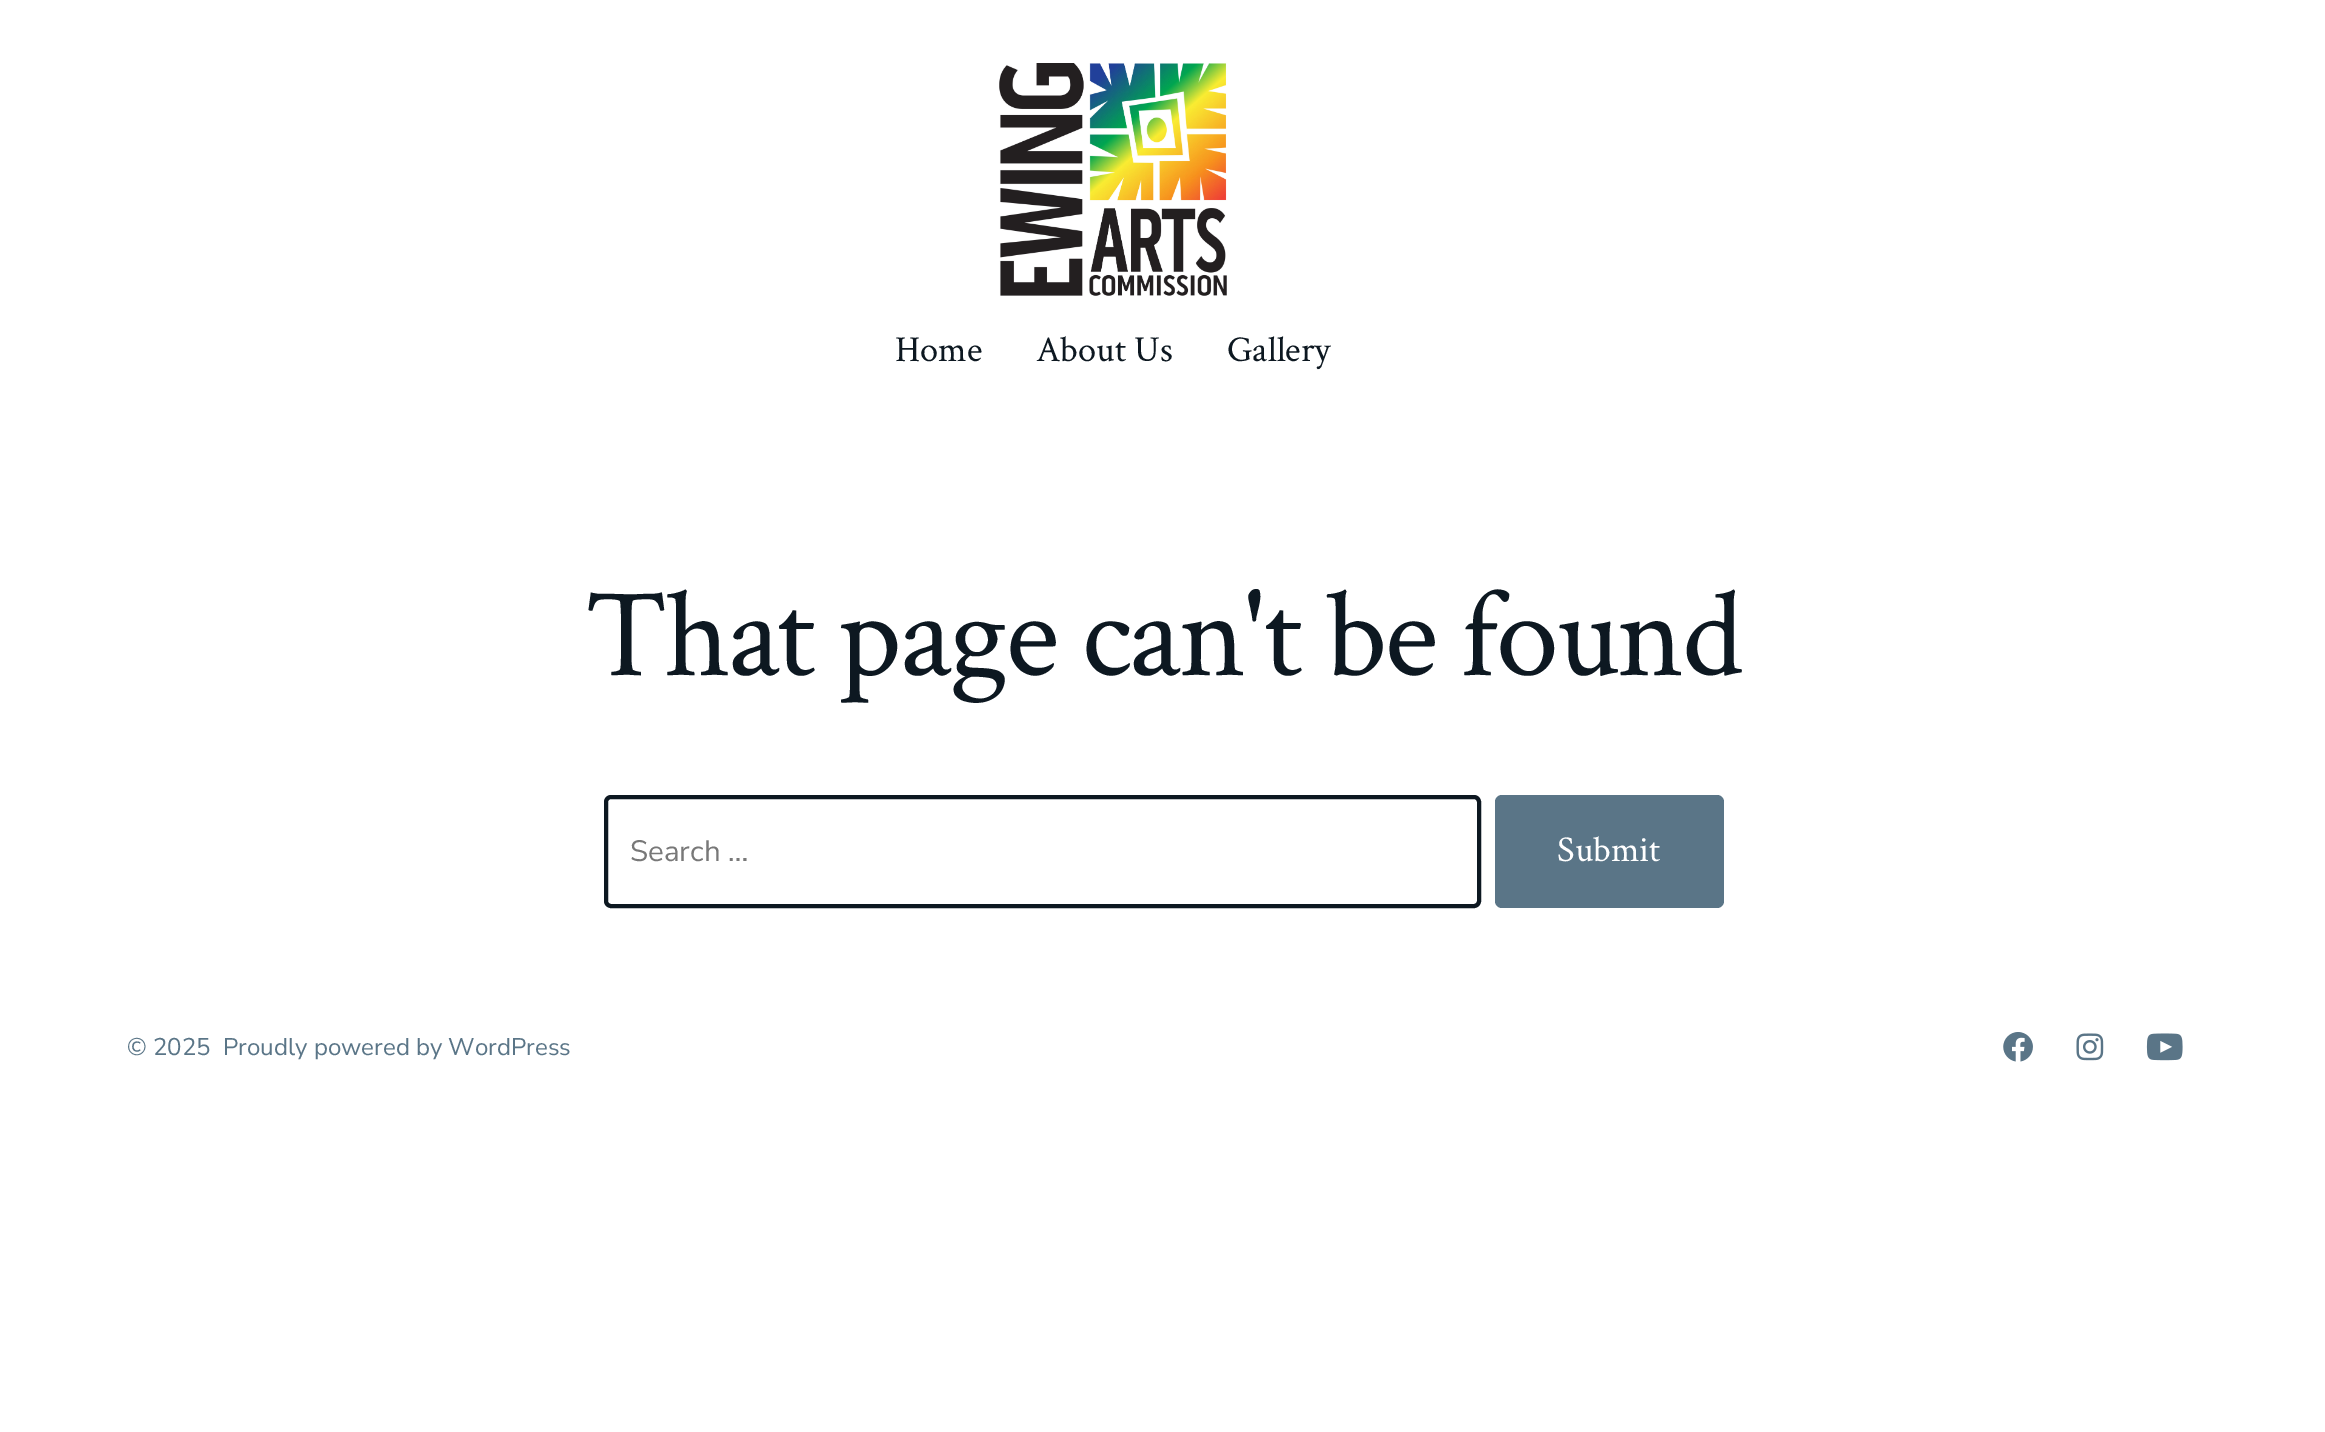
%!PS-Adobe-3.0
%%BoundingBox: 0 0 2325 1432
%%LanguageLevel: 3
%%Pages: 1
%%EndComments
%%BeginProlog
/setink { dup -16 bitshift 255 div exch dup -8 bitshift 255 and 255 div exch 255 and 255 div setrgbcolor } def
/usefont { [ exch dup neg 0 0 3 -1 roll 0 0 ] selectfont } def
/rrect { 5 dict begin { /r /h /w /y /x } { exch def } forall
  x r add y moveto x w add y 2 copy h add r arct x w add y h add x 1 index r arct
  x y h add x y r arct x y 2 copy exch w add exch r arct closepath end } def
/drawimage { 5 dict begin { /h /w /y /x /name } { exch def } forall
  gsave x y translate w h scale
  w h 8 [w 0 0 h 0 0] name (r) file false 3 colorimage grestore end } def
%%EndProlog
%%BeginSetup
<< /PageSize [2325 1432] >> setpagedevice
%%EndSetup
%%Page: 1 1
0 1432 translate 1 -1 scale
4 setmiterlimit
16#FFFFFF setink
0 0 2325 1432 rectfill
(img1.raw) 999 63 228 233 drawimage
/CrimsonText-Regular 36.5 usefont
16#0D1821 setink
[
    [(Home) 895 361]
    [(About Us) 1036 361]
    [(Gallery) 1227 361]
] { aload pop moveto show } forall
/CrimsonText-Regular 126.25 usefont
585 675 moveto -2.5 0 (That page can't be found) ashow
4 setlinewidth
606 797 873 109 5 rrect stroke
/NunitoSans-Regular 29.5 usefont
16#787878 setink
630 861 moveto (Search …) show
16#5A7587 setink
1495 795 229 113 7 rrect fill
/CrimsonText-Regular 36.5 usefont
16#FFFFFF setink
1557 861 moveto (Submit) show
/NunitoSans-Regular 24.1 usefont
16#5A7587 setink
127 1055 moveto (© 2025) show
223 1055 moveto (Proudly powered by WordPress) show
(img2.raw) 2003 1032 30 30 drawimage
(img3.raw) 2076 1033 28 28 drawimage
(img4.raw) 2146 1033 37 28 drawimage
showpage
%%EOF
